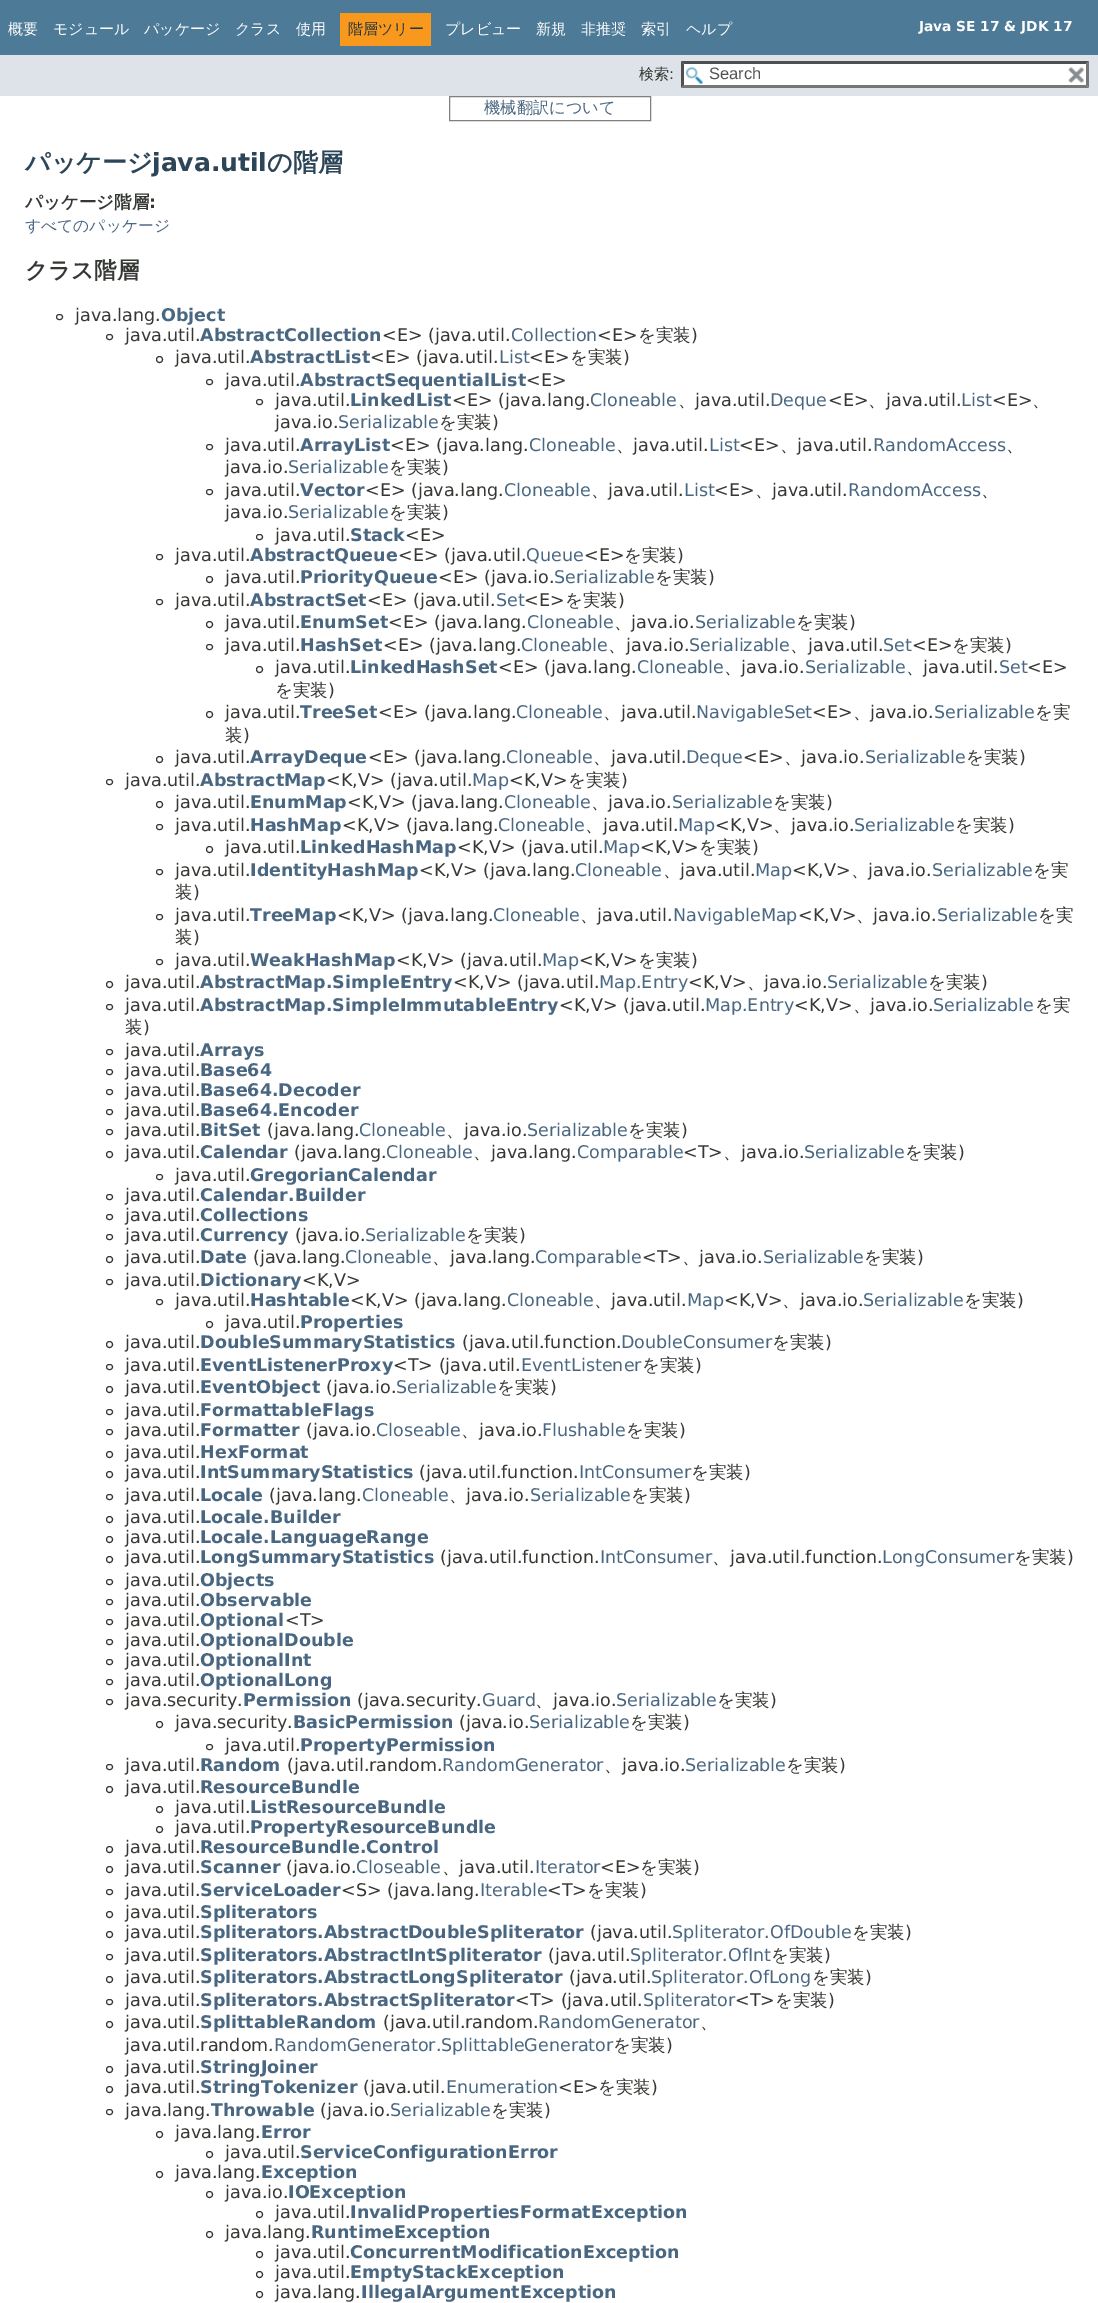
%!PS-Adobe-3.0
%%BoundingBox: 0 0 1098 2303
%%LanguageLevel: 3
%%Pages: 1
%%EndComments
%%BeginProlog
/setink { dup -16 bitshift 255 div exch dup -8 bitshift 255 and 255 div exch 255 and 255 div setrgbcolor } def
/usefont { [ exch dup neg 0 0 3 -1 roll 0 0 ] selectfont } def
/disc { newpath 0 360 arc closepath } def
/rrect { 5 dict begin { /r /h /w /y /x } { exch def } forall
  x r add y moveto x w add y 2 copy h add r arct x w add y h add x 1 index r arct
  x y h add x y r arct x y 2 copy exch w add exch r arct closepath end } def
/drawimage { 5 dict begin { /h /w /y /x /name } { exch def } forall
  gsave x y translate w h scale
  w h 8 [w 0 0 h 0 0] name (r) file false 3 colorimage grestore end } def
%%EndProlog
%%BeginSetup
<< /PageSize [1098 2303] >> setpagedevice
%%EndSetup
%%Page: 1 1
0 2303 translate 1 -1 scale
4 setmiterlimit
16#FFFFFF setink
0 0 1098 2303 rectfill
16#4D7A97 setink
0 0 1098 55 rectfill
/WenQuanYiZenHei-Medium 15 usefont
16#FFFFFF setink
[
    [(概要) 8 34]
    [(モジュール) 53 34]
    [(パッケージ) 144 34]
    [(クラス) 235 34]
    [(使用) 296 34]
] { aload pop moveto show } forall
16#F8981D setink
340 13 91 33 rectfill
16#253441 setink
348 34 moveto (階層ツリー) show
16#FFFFFF setink
[
    [(プレビュー) 445 34]
    [(新規) 536 34]
    [(非推奨) 581 34]
    [(索引) 641 34]
    [(ヘルプ) 686 34]
] { aload pop moveto show } forall
/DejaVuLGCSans-Bold 13.75 usefont
919 31 moveto (Java SE 17 & JDK 17) show
16#DEE3E9 setink
0 55 1098 41 rectfill
/WenQuanYiZenHei-Medium 15 usefont
16#353833 setink
639 79 moveto (検索) show
/DejaVuLGCSans-Regular 15 usefont
669 79 moveto (:) show
16#FFFFFF setink
681 61 408 27 rectfill
(img1.raw) 686 67 17 17 drawimage
16#4F4F4F setink
681 61 moveto 1089 61 lineto 1086 64 lineto 684 64 lineto closepath fill
16#767676 setink
1089 61 moveto 1089 87.5 lineto 1086 85 lineto 1086 64 lineto closepath fill
1089 88 moveto 681 88 lineto 684 85 lineto 1086 85 lineto closepath fill
16#4F4F4F setink
681 87.5 moveto 681 61 lineto 684 64 lineto 684 85 lineto closepath fill
/LiberationSans-Regular 16.5 usefont
16#545454 setink
709 79 moveto (Search) show
(img2.raw) 1068 67 16 16 drawimage
16#808080 setink
449.5 96.5 201 24 rectstroke
/WenQuanYiZenHei-Medium 16.25 usefont
16#4A6782 setink
484 113 moveto (機械翻訳について) show
/WenQuanYiZenHei-Bold 25 usefont
16#2C4557 setink
25 171 moveto (パッケージ) show
/DejaVuLGCSans-Bold 25 usefont
152 171 moveto (java.util) show
/WenQuanYiZenHei-Bold 25 usefont
267 171 moveto (の階層) show
/WenQuanYiZenHei-Bold 17.5 usefont
16#353833 setink
25 208 moveto (パッケージ階層) show
/DejaVuLGCSans-Bold 17.5 usefont
149 208 moveto (:) show
/WenQuanYiZenHei-Medium 15.75 usefont
16#4A6782 setink
25 231 moveto (すべてのパッケージ) show
/WenQuanYiZenHei-Bold 22.5 usefont
16#353833 setink
25 278 moveto (クラス階層) show
56.5 314.5 6 5 2.5 rrect stroke
/DejaVuLGCSans-Regular 17.5 usefont
75 321 moveto (java.lang.) show
/DejaVuLGCSans-Bold 17.5 usefont
16#4A6782 setink
161 321 moveto (Object) show
16#353833 setink
106.5 334.5 6 5 2.5 rrect stroke
/DejaVuLGCSans-Regular 17.5 usefont
125 341 moveto (java.util.) show
/DejaVuLGCSans-Bold 17.5 usefont
16#4A6782 setink
200 341 moveto (AbstractCollection) show
/DejaVuLGCSans-Regular 17.5 usefont
16#353833 setink
382 341 moveto (<E> \(java.util.) show
16#4A6782 setink
511 341 moveto (Collection) show
16#353833 setink
597 341 moveto (<E>) show
/WenQuanYiZenHei-Medium 17.5 usefont
638 341 moveto (を実装) show
/DejaVuLGCSans-Regular 17.5 usefont
691 341 moveto (\)) show
159.5 359.5 3 disc stroke
175 363 moveto (java.util.) show
/DejaVuLGCSans-Bold 17.5 usefont
16#4A6782 setink
250 363 moveto (AbstractList) show
/DejaVuLGCSans-Regular 17.5 usefont
16#353833 setink
370 363 moveto (<E> \(java.util.) show
16#4A6782 setink
499 363 moveto (List) show
16#353833 setink
529 363 moveto (<E>) show
/WenQuanYiZenHei-Medium 17.5 usefont
570 363 moveto (を実装) show
/DejaVuLGCSans-Regular 17.5 usefont
623 363 moveto (\)) show
206.5 379.5 6 5 2.5 rrect stroke
225 386 moveto (java.util.) show
/DejaVuLGCSans-Bold 17.5 usefont
16#4A6782 setink
300 386 moveto (AbstractSequentialList) show
/DejaVuLGCSans-Regular 17.5 usefont
16#353833 setink
526 386 moveto (<E>) show
256.5 399.5 6 5 2.5 rrect stroke
275 406 moveto (java.util.) show
/DejaVuLGCSans-Bold 17.5 usefont
16#4A6782 setink
350 406 moveto (LinkedList) show
/DejaVuLGCSans-Regular 17.5 usefont
16#353833 setink
452 406 moveto (<E> \(java.lang.) show
16#4A6782 setink
590 406 moveto (Cloneable) show
16#353833 setink
695 406 moveto (java.util.) show
16#4A6782 setink
770 406 moveto (Deque) show
16#353833 setink
828 406 moveto (<E>) show
886 406 moveto (java.util.) show
16#4A6782 setink
961 406 moveto (List) show
16#353833 setink
992 406 moveto (<E>) show
/WenQuanYiZenHei-Medium 17.5 usefont
[
    [(、) 678 406]
    [(、) 868 406]
    [(、) 1032 406]
] { aload pop moveto show } forall
/DejaVuLGCSans-Regular 17.5 usefont
275 428 moveto (java.io.) show
16#4A6782 setink
338 428 moveto (Serializable) show
/WenQuanYiZenHei-Medium 17.5 usefont
16#353833 setink
439 428 moveto (を実装) show
/DejaVuLGCSans-Regular 17.5 usefont
492 428 moveto (\)) show
206.5 444.5 6 5 2.5 rrect stroke
225 451 moveto (java.util.) show
/DejaVuLGCSans-Bold 17.5 usefont
16#4A6782 setink
300 451 moveto (ArrayList) show
/DejaVuLGCSans-Regular 17.5 usefont
16#353833 setink
390 451 moveto (<E> \(java.lang.) show
16#4A6782 setink
529 451 moveto (Cloneable) show
16#353833 setink
633 451 moveto (java.util.) show
16#4A6782 setink
709 451 moveto (List) show
16#353833 setink
739 451 moveto (<E>) show
797 451 moveto (java.util.) show
16#4A6782 setink
873 451 moveto (RandomAccess) show
/WenQuanYiZenHei-Medium 17.5 usefont
16#353833 setink
[
    [(、) 616 451]
    [(、) 780 451]
    [(、) 1006 451]
] { aload pop moveto show } forall
/DejaVuLGCSans-Regular 17.5 usefont
225 473 moveto (java.io.) show
16#4A6782 setink
288 473 moveto (Serializable) show
/WenQuanYiZenHei-Medium 17.5 usefont
16#353833 setink
389 473 moveto (を実装) show
/DejaVuLGCSans-Regular 17.5 usefont
442 473 moveto (\)) show
206.5 489.5 6 5 2.5 rrect stroke
225 496 moveto (java.util.) show
/DejaVuLGCSans-Bold 17.5 usefont
16#4A6782 setink
300 496 moveto (Vector) show
/DejaVuLGCSans-Regular 17.5 usefont
16#353833 setink
365 496 moveto (<E> \(java.lang.) show
16#4A6782 setink
504 496 moveto (Cloneable) show
16#353833 setink
608 496 moveto (java.util.) show
16#4A6782 setink
684 496 moveto (List) show
16#353833 setink
714 496 moveto (<E>) show
772 496 moveto (java.util.) show
16#4A6782 setink
848 496 moveto (RandomAccess) show
/WenQuanYiZenHei-Medium 17.5 usefont
16#353833 setink
[
    [(、) 591 496]
    [(、) 755 496]
    [(、) 981 496]
] { aload pop moveto show } forall
/DejaVuLGCSans-Regular 17.5 usefont
225 518 moveto (java.io.) show
16#4A6782 setink
288 518 moveto (Serializable) show
/WenQuanYiZenHei-Medium 17.5 usefont
16#353833 setink
389 518 moveto (を実装) show
/DejaVuLGCSans-Regular 17.5 usefont
442 518 moveto (\)) show
256.5 534.5 6 5 2.5 rrect stroke
275 541 moveto (java.util.) show
/DejaVuLGCSans-Bold 17.5 usefont
16#4A6782 setink
350 541 moveto (Stack) show
/DejaVuLGCSans-Regular 17.5 usefont
16#353833 setink
405 541 moveto (<E>) show
156.5 554.5 6 5 2.5 rrect stroke
175 561 moveto (java.util.) show
/DejaVuLGCSans-Bold 17.5 usefont
16#4A6782 setink
250 561 moveto (AbstractQueue) show
/DejaVuLGCSans-Regular 17.5 usefont
16#353833 setink
398 561 moveto (<E> \(java.util.) show
16#4A6782 setink
526 561 moveto (Queue) show
16#353833 setink
584 561 moveto (<E>) show
/WenQuanYiZenHei-Medium 17.5 usefont
624 561 moveto (を実装) show
/DejaVuLGCSans-Regular 17.5 usefont
677 561 moveto (\)) show
209.5 579.5 3 disc stroke
225 583 moveto (java.util.) show
/DejaVuLGCSans-Bold 17.5 usefont
16#4A6782 setink
300 583 moveto (PriorityQueue) show
/DejaVuLGCSans-Regular 17.5 usefont
16#353833 setink
438 583 moveto (<E> \(java.io.) show
16#4A6782 setink
554 583 moveto (Serializable) show
/WenQuanYiZenHei-Medium 17.5 usefont
16#353833 setink
655 583 moveto (を実装) show
/DejaVuLGCSans-Regular 17.5 usefont
708 583 moveto (\)) show
156.5 599.5 6 5 2.5 rrect stroke
175 606 moveto (java.util.) show
/DejaVuLGCSans-Bold 17.5 usefont
16#4A6782 setink
250 606 moveto (AbstractSet) show
/DejaVuLGCSans-Regular 17.5 usefont
16#353833 setink
367 606 moveto (<E> \(java.util.) show
16#4A6782 setink
496 606 moveto (Set) show
16#353833 setink
524 606 moveto (<E>) show
/WenQuanYiZenHei-Medium 17.5 usefont
565 606 moveto (を実装) show
/DejaVuLGCSans-Regular 17.5 usefont
618 606 moveto (\)) show
209.5 624.5 3 disc stroke
225 628 moveto (java.util.) show
/DejaVuLGCSans-Bold 17.5 usefont
16#4A6782 setink
300 628 moveto (EnumSet) show
/DejaVuLGCSans-Regular 17.5 usefont
16#353833 setink
388 628 moveto (<E> \(java.lang.) show
16#4A6782 setink
527 628 moveto (Cloneable) show
16#353833 setink
631 628 moveto (java.io.) show
16#4A6782 setink
695 628 moveto (Serializable) show
/WenQuanYiZenHei-Medium 17.5 usefont
16#353833 setink
796 628 moveto (を実装) show
/DejaVuLGCSans-Regular 17.5 usefont
849 628 moveto (\)) show
/WenQuanYiZenHei-Medium 17.5 usefont
614 628 moveto (、) show
206.5 644.5 6 5 2.5 rrect stroke
/DejaVuLGCSans-Regular 17.5 usefont
225 651 moveto (java.util.) show
/DejaVuLGCSans-Bold 17.5 usefont
16#4A6782 setink
300 651 moveto (HashSet) show
/DejaVuLGCSans-Regular 17.5 usefont
16#353833 setink
383 651 moveto (<E> \(java.lang.) show
16#4A6782 setink
521 651 moveto (Cloneable) show
16#353833 setink
626 651 moveto (java.io.) show
16#4A6782 setink
689 651 moveto (Serializable) show
16#353833 setink
808 651 moveto (java.util.) show
16#4A6782 setink
883 651 moveto (Set) show
16#353833 setink
912 651 moveto (<E>) show
/WenQuanYiZenHei-Medium 17.5 usefont
952 651 moveto (を実装) show
/DejaVuLGCSans-Regular 17.5 usefont
1005 651 moveto (\)) show
/WenQuanYiZenHei-Medium 17.5 usefont
608 651 moveto (、) show
790 651 moveto (、) show
259.5 669.5 3 disc stroke
/DejaVuLGCSans-Regular 17.5 usefont
275 673 moveto (java.util.) show
/DejaVuLGCSans-Bold 17.5 usefont
16#4A6782 setink
350 673 moveto (LinkedHashSet) show
/DejaVuLGCSans-Regular 17.5 usefont
16#353833 setink
498 673 moveto (<E> \(java.lang.) show
16#4A6782 setink
637 673 moveto (Cloneable) show
16#353833 setink
741 673 moveto (java.io.) show
16#4A6782 setink
805 673 moveto (Serializable) show
16#353833 setink
923 673 moveto (java.util.) show
16#4A6782 setink
999 673 moveto (Set) show
16#353833 setink
1027 673 moveto (<E>) show
/WenQuanYiZenHei-Medium 17.5 usefont
[
    [(、) 724 673]
    [(、) 906 673]
    [(を実装) 275 696]
] { aload pop moveto show } forall
/DejaVuLGCSans-Regular 17.5 usefont
328 696 moveto (\)) show
209.5 714.5 3 disc stroke
225 718 moveto (java.util.) show
/DejaVuLGCSans-Bold 17.5 usefont
16#4A6782 setink
300 718 moveto (TreeSet) show
/DejaVuLGCSans-Regular 17.5 usefont
16#353833 setink
378 718 moveto (<E> \(java.lang.) show
16#4A6782 setink
516 718 moveto (Cloneable) show
16#353833 setink
621 718 moveto (java.util.) show
16#4A6782 setink
696 718 moveto (NavigableSet) show
16#353833 setink
812 718 moveto (<E>) show
870 718 moveto (java.io.) show
16#4A6782 setink
934 718 moveto (Serializable) show
/WenQuanYiZenHei-Medium 17.5 usefont
16#353833 setink
[
    [(を実) 1035 718]
    [(、) 603 718]
    [(、) 853 718]
    [(装) 225 741]
] { aload pop moveto show } forall
/DejaVuLGCSans-Regular 17.5 usefont
243 741 moveto (\)) show
159.5 759.5 3 disc stroke
175 763 moveto (java.util.) show
/DejaVuLGCSans-Bold 17.5 usefont
16#4A6782 setink
250 763 moveto (ArrayDeque) show
/DejaVuLGCSans-Regular 17.5 usefont
16#353833 setink
368 763 moveto (<E> \(java.lang.) show
16#4A6782 setink
506 763 moveto (Cloneable) show
16#353833 setink
611 763 moveto (java.util.) show
16#4A6782 setink
686 763 moveto (Deque) show
16#353833 setink
743 763 moveto (<E>) show
801 763 moveto (java.io.) show
16#4A6782 setink
865 763 moveto (Serializable) show
/WenQuanYiZenHei-Medium 17.5 usefont
16#353833 setink
966 763 moveto (を実装) show
/DejaVuLGCSans-Regular 17.5 usefont
1019 763 moveto (\)) show
/WenQuanYiZenHei-Medium 17.5 usefont
593 763 moveto (、) show
784 763 moveto (、) show
106.5 779.5 6 5 2.5 rrect stroke
/DejaVuLGCSans-Regular 17.5 usefont
125 786 moveto (java.util.) show
/DejaVuLGCSans-Bold 17.5 usefont
16#4A6782 setink
200 786 moveto (AbstractMap) show
/DejaVuLGCSans-Regular 17.5 usefont
16#353833 setink
326 786 moveto (<K,V> \(java.util.) show
16#4A6782 setink
472 786 moveto (Map) show
16#353833 setink
509 786 moveto (<K,V>) show
/WenQuanYiZenHei-Medium 17.5 usefont
568 786 moveto (を実装) show
/DejaVuLGCSans-Regular 17.5 usefont
621 786 moveto (\)) show
159.5 804.5 3 disc stroke
175 808 moveto (java.util.) show
/DejaVuLGCSans-Bold 17.5 usefont
16#4A6782 setink
250 808 moveto (EnumMap) show
/DejaVuLGCSans-Regular 17.5 usefont
16#353833 setink
347 808 moveto (<K,V> \(java.lang.) show
16#4A6782 setink
504 808 moveto (Cloneable) show
16#353833 setink
608 808 moveto (java.io.) show
16#4A6782 setink
672 808 moveto (Serializable) show
/WenQuanYiZenHei-Medium 17.5 usefont
16#353833 setink
773 808 moveto (を実装) show
/DejaVuLGCSans-Regular 17.5 usefont
826 808 moveto (\)) show
/WenQuanYiZenHei-Medium 17.5 usefont
591 808 moveto (、) show
156.5 824.5 6 5 2.5 rrect stroke
/DejaVuLGCSans-Regular 17.5 usefont
175 831 moveto (java.util.) show
/DejaVuLGCSans-Bold 17.5 usefont
16#4A6782 setink
250 831 moveto (HashMap) show
/DejaVuLGCSans-Regular 17.5 usefont
16#353833 setink
342 831 moveto (<K,V> \(java.lang.) show
16#4A6782 setink
498 831 moveto (Cloneable) show
16#353833 setink
603 831 moveto (java.util.) show
16#4A6782 setink
678 831 moveto (Map) show
16#353833 setink
715 831 moveto (<K,V>) show
791 831 moveto (java.io.) show
16#4A6782 setink
854 831 moveto (Serializable) show
/WenQuanYiZenHei-Medium 17.5 usefont
16#353833 setink
955 831 moveto (を実装) show
/DejaVuLGCSans-Regular 17.5 usefont
1008 831 moveto (\)) show
/WenQuanYiZenHei-Medium 17.5 usefont
585 831 moveto (、) show
773 831 moveto (、) show
209.5 849.5 3 disc stroke
/DejaVuLGCSans-Regular 17.5 usefont
225 853 moveto (java.util.) show
/DejaVuLGCSans-Bold 17.5 usefont
16#4A6782 setink
300 853 moveto (LinkedHashMap) show
/DejaVuLGCSans-Regular 17.5 usefont
16#353833 setink
457 853 moveto (<K,V> \(java.util.) show
16#4A6782 setink
603 853 moveto (Map) show
16#353833 setink
640 853 moveto (<K,V>) show
/WenQuanYiZenHei-Medium 17.5 usefont
699 853 moveto (を実装) show
/DejaVuLGCSans-Regular 17.5 usefont
752 853 moveto (\)) show
156.5 869.5 6 5 2.5 rrect stroke
175 876 moveto (java.util.) show
/DejaVuLGCSans-Bold 17.5 usefont
16#4A6782 setink
250 876 moveto (IdentityHashMap) show
/DejaVuLGCSans-Regular 17.5 usefont
16#353833 setink
419 876 moveto (<K,V> \(java.lang.) show
16#4A6782 setink
575 876 moveto (Cloneable) show
16#353833 setink
680 876 moveto (java.util.) show
16#4A6782 setink
755 876 moveto (Map) show
16#353833 setink
792 876 moveto (<K,V>) show
868 876 moveto (java.io.) show
16#4A6782 setink
932 876 moveto (Serializable) show
/WenQuanYiZenHei-Medium 17.5 usefont
16#353833 setink
[
    [(を実) 1033 876]
    [(、) 663 876]
    [(、) 851 876]
    [(装) 175 898]
] { aload pop moveto show } forall
/DejaVuLGCSans-Regular 17.5 usefont
193 898 moveto (\)) show
156.5 914.5 6 5 2.5 rrect stroke
175 921 moveto (java.util.) show
/DejaVuLGCSans-Bold 17.5 usefont
16#4A6782 setink
250 921 moveto (TreeMap) show
/DejaVuLGCSans-Regular 17.5 usefont
16#353833 setink
337 921 moveto (<K,V> \(java.lang.) show
16#4A6782 setink
493 921 moveto (Cloneable) show
16#353833 setink
597 921 moveto (java.util.) show
16#4A6782 setink
673 921 moveto (NavigableMap) show
16#353833 setink
798 921 moveto (<K,V>) show
873 921 moveto (java.io.) show
16#4A6782 setink
937 921 moveto (Serializable) show
/WenQuanYiZenHei-Medium 17.5 usefont
16#353833 setink
[
    [(を実) 1038 921]
    [(、) 580 921]
    [(、) 856 921]
    [(装) 175 943]
] { aload pop moveto show } forall
/DejaVuLGCSans-Regular 17.5 usefont
193 943 moveto (\)) show
156.5 959.5 6 5 2.5 rrect stroke
175 966 moveto (java.util.) show
/DejaVuLGCSans-Bold 17.5 usefont
16#4A6782 setink
250 966 moveto (WeakHashMap) show
/DejaVuLGCSans-Regular 17.5 usefont
16#353833 setink
396 966 moveto (<K,V> \(java.util.) show
16#4A6782 setink
542 966 moveto (Map) show
16#353833 setink
579 966 moveto (<K,V>) show
/WenQuanYiZenHei-Medium 17.5 usefont
638 966 moveto (を実装) show
/DejaVuLGCSans-Regular 17.5 usefont
691 966 moveto (\)) show
109.5 984.5 3 disc stroke
125 988 moveto (java.util.) show
/DejaVuLGCSans-Bold 17.5 usefont
16#4A6782 setink
200 988 moveto (AbstractMap.SimpleEntry) show
/DejaVuLGCSans-Regular 17.5 usefont
16#353833 setink
453 988 moveto (<K,V> \(java.util.) show
16#4A6782 setink
599 988 moveto (Map.Entry) show
16#353833 setink
688 988 moveto (<K,V>) show
764 988 moveto (java.io.) show
16#4A6782 setink
827 988 moveto (Serializable) show
/WenQuanYiZenHei-Medium 17.5 usefont
16#353833 setink
928 988 moveto (を実装) show
/DejaVuLGCSans-Regular 17.5 usefont
981 988 moveto (\)) show
/WenQuanYiZenHei-Medium 17.5 usefont
747 988 moveto (、) show
106.5 1004.5 6 5 2.5 rrect stroke
/DejaVuLGCSans-Regular 17.5 usefont
125 1011 moveto (java.util.) show
/DejaVuLGCSans-Bold 17.5 usefont
16#4A6782 setink
200 1011 moveto (AbstractMap.SimpleImmutableEntry) show
/DejaVuLGCSans-Regular 17.5 usefont
16#353833 setink
559 1011 moveto (<K,V> \(java.util.) show
16#4A6782 setink
705 1011 moveto (Map.Entry) show
16#353833 setink
794 1011 moveto (<K,V>) show
870 1011 moveto (java.io.) show
16#4A6782 setink
933 1011 moveto (Serializable) show
/WenQuanYiZenHei-Medium 17.5 usefont
16#353833 setink
[
    [(を実) 1035 1011]
    [(、) 853 1011]
    [(装) 125 1033]
] { aload pop moveto show } forall
/DejaVuLGCSans-Regular 17.5 usefont
143 1033 moveto (\)) show
106.5 1049.5 6 5 2.5 rrect stroke
125 1056 moveto (java.util.) show
/DejaVuLGCSans-Bold 17.5 usefont
16#4A6782 setink
200 1056 moveto (Arrays) show
16#353833 setink
106.5 1069.5 6 5 2.5 rrect stroke
/DejaVuLGCSans-Regular 17.5 usefont
125 1076 moveto (java.util.) show
/DejaVuLGCSans-Bold 17.5 usefont
16#4A6782 setink
200 1076 moveto (Base64) show
16#353833 setink
106.5 1089.5 6 5 2.5 rrect stroke
/DejaVuLGCSans-Regular 17.5 usefont
125 1096 moveto (java.util.) show
/DejaVuLGCSans-Bold 17.5 usefont
16#4A6782 setink
200 1096 moveto (Base64.Decoder) show
16#353833 setink
106.5 1109.5 6 5 2.5 rrect stroke
/DejaVuLGCSans-Regular 17.5 usefont
125 1116 moveto (java.util.) show
/DejaVuLGCSans-Bold 17.5 usefont
16#4A6782 setink
200 1116 moveto (Base64.Encoder) show
16#353833 setink
106.5 1129.5 6 5 2.5 rrect stroke
/DejaVuLGCSans-Regular 17.5 usefont
125 1136 moveto (java.util.) show
/DejaVuLGCSans-Bold 17.5 usefont
16#4A6782 setink
200 1136 moveto (BitSet) show
/DejaVuLGCSans-Regular 17.5 usefont
16#353833 setink
267 1136 moveto (\(java.lang.) show
16#4A6782 setink
359 1136 moveto (Cloneable) show
16#353833 setink
464 1136 moveto (java.io.) show
16#4A6782 setink
527 1136 moveto (Serializable) show
/WenQuanYiZenHei-Medium 17.5 usefont
16#353833 setink
628 1136 moveto (を実装) show
/DejaVuLGCSans-Regular 17.5 usefont
681 1136 moveto (\)) show
/WenQuanYiZenHei-Medium 17.5 usefont
446 1136 moveto (、) show
109.5 1154.5 3 disc stroke
/DejaVuLGCSans-Regular 17.5 usefont
125 1158 moveto (java.util.) show
/DejaVuLGCSans-Bold 17.5 usefont
16#4A6782 setink
200 1158 moveto (Calendar) show
/DejaVuLGCSans-Regular 17.5 usefont
16#353833 setink
294 1158 moveto (\(java.lang.) show
16#4A6782 setink
386 1158 moveto (Cloneable) show
16#353833 setink
491 1158 moveto (java.lang.) show
16#4A6782 setink
577 1158 moveto (Comparable) show
16#353833 setink
683 1158 moveto (<T>) show
741 1158 moveto (java.io.) show
16#4A6782 setink
804 1158 moveto (Serializable) show
/WenQuanYiZenHei-Medium 17.5 usefont
16#353833 setink
905 1158 moveto (を実装) show
/DejaVuLGCSans-Regular 17.5 usefont
958 1158 moveto (\)) show
/WenQuanYiZenHei-Medium 17.5 usefont
473 1158 moveto (、) show
723 1158 moveto (、) show
156.5 1174.5 6 5 2.5 rrect stroke
/DejaVuLGCSans-Regular 17.5 usefont
175 1181 moveto (java.util.) show
/DejaVuLGCSans-Bold 17.5 usefont
16#4A6782 setink
250 1181 moveto (GregorianCalendar) show
16#353833 setink
106.5 1194.5 6 5 2.5 rrect stroke
/DejaVuLGCSans-Regular 17.5 usefont
125 1201 moveto (java.util.) show
/DejaVuLGCSans-Bold 17.5 usefont
16#4A6782 setink
200 1201 moveto (Calendar.Builder) show
16#353833 setink
106.5 1214.5 6 5 2.5 rrect stroke
/DejaVuLGCSans-Regular 17.5 usefont
125 1221 moveto (java.util.) show
/DejaVuLGCSans-Bold 17.5 usefont
16#4A6782 setink
200 1221 moveto (Collections) show
16#353833 setink
106.5 1234.5 6 5 2.5 rrect stroke
/DejaVuLGCSans-Regular 17.5 usefont
125 1241 moveto (java.util.) show
/DejaVuLGCSans-Bold 17.5 usefont
16#4A6782 setink
200 1241 moveto (Currency) show
/DejaVuLGCSans-Regular 17.5 usefont
16#353833 setink
295 1241 moveto (\(java.io.) show
16#4A6782 setink
365 1241 moveto (Serializable) show
/WenQuanYiZenHei-Medium 17.5 usefont
16#353833 setink
466 1241 moveto (を実装) show
/DejaVuLGCSans-Regular 17.5 usefont
519 1241 moveto (\)) show
109.5 1259.5 3 disc stroke
125 1263 moveto (java.util.) show
/DejaVuLGCSans-Bold 17.5 usefont
16#4A6782 setink
200 1263 moveto (Date) show
/DejaVuLGCSans-Regular 17.5 usefont
16#353833 setink
253 1263 moveto (\(java.lang.) show
16#4A6782 setink
345 1263 moveto (Cloneable) show
16#353833 setink
450 1263 moveto (java.lang.) show
16#4A6782 setink
535 1263 moveto (Comparable) show
16#353833 setink
642 1263 moveto (<T>) show
699 1263 moveto (java.io.) show
16#4A6782 setink
763 1263 moveto (Serializable) show
/WenQuanYiZenHei-Medium 17.5 usefont
16#353833 setink
864 1263 moveto (を実装) show
/DejaVuLGCSans-Regular 17.5 usefont
917 1263 moveto (\)) show
/WenQuanYiZenHei-Medium 17.5 usefont
432 1263 moveto (、) show
682 1263 moveto (、) show
106.5 1279.5 6 5 2.5 rrect stroke
/DejaVuLGCSans-Regular 17.5 usefont
125 1286 moveto (java.util.) show
/DejaVuLGCSans-Bold 17.5 usefont
16#4A6782 setink
200 1286 moveto (Dictionary) show
/DejaVuLGCSans-Regular 17.5 usefont
16#353833 setink
302 1286 moveto (<K,V>) show
156.5 1299.5 6 5 2.5 rrect stroke
175 1306 moveto (java.util.) show
/DejaVuLGCSans-Bold 17.5 usefont
16#4A6782 setink
250 1306 moveto (Hashtable) show
/DejaVuLGCSans-Regular 17.5 usefont
16#353833 setink
350 1306 moveto (<K,V> \(java.lang.) show
16#4A6782 setink
507 1306 moveto (Cloneable) show
16#353833 setink
611 1306 moveto (java.util.) show
16#4A6782 setink
687 1306 moveto (Map) show
16#353833 setink
724 1306 moveto (<K,V>) show
800 1306 moveto (java.io.) show
16#4A6782 setink
863 1306 moveto (Serializable) show
/WenQuanYiZenHei-Medium 17.5 usefont
16#353833 setink
964 1306 moveto (を実装) show
/DejaVuLGCSans-Regular 17.5 usefont
1017 1306 moveto (\)) show
/WenQuanYiZenHei-Medium 17.5 usefont
594 1306 moveto (、) show
782 1306 moveto (、) show
209.5 1324.5 3 disc stroke
/DejaVuLGCSans-Regular 17.5 usefont
225 1328 moveto (java.util.) show
/DejaVuLGCSans-Bold 17.5 usefont
16#4A6782 setink
300 1328 moveto (Properties) show
16#353833 setink
109.5 1344.5 3 disc stroke
/DejaVuLGCSans-Regular 17.5 usefont
125 1348 moveto (java.util.) show
/DejaVuLGCSans-Bold 17.5 usefont
16#4A6782 setink
200 1348 moveto (DoubleSummaryStatistics) show
/DejaVuLGCSans-Regular 17.5 usefont
16#353833 setink
462 1348 moveto (\(java.util.function.) show
16#4A6782 setink
621 1348 moveto (DoubleConsumer) show
/WenQuanYiZenHei-Medium 17.5 usefont
16#353833 setink
772 1348 moveto (を実装) show
/DejaVuLGCSans-Regular 17.5 usefont
825 1348 moveto (\)) show
106.5 1364.5 6 5 2.5 rrect stroke
125 1371 moveto (java.util.) show
/DejaVuLGCSans-Bold 17.5 usefont
16#4A6782 setink
200 1371 moveto (EventListenerProxy) show
/DejaVuLGCSans-Regular 17.5 usefont
16#353833 setink
393 1371 moveto (<T> \(java.util.) show
16#4A6782 setink
521 1371 moveto (EventListener) show
/WenQuanYiZenHei-Medium 17.5 usefont
16#353833 setink
642 1371 moveto (を実装) show
/DejaVuLGCSans-Regular 17.5 usefont
695 1371 moveto (\)) show
109.5 1389.5 3 disc stroke
125 1393 moveto (java.util.) show
/DejaVuLGCSans-Bold 17.5 usefont
16#4A6782 setink
200 1393 moveto (EventObject) show
/DejaVuLGCSans-Regular 17.5 usefont
16#353833 setink
326 1393 moveto (\(java.io.) show
16#4A6782 setink
396 1393 moveto (Serializable) show
/WenQuanYiZenHei-Medium 17.5 usefont
16#353833 setink
497 1393 moveto (を実装) show
/DejaVuLGCSans-Regular 17.5 usefont
550 1393 moveto (\)) show
106.5 1409.5 6 5 2.5 rrect stroke
125 1416 moveto (java.util.) show
/DejaVuLGCSans-Bold 17.5 usefont
16#4A6782 setink
200 1416 moveto (FormattableFlags) show
16#353833 setink
106.5 1429.5 6 5 2.5 rrect stroke
/DejaVuLGCSans-Regular 17.5 usefont
125 1436 moveto (java.util.) show
/DejaVuLGCSans-Bold 17.5 usefont
16#4A6782 setink
200 1436 moveto (Formatter) show
/DejaVuLGCSans-Regular 17.5 usefont
16#353833 setink
306 1436 moveto (\(java.io.) show
16#4A6782 setink
376 1436 moveto (Closeable) show
16#353833 setink
479 1436 moveto (java.io.) show
16#4A6782 setink
542 1436 moveto (Flushable) show
/WenQuanYiZenHei-Medium 17.5 usefont
16#353833 setink
626 1436 moveto (を実装) show
/DejaVuLGCSans-Regular 17.5 usefont
679 1436 moveto (\)) show
/WenQuanYiZenHei-Medium 17.5 usefont
461 1436 moveto (、) show
109.5 1454.5 3 disc stroke
/DejaVuLGCSans-Regular 17.5 usefont
125 1458 moveto (java.util.) show
/DejaVuLGCSans-Bold 17.5 usefont
16#4A6782 setink
200 1458 moveto (HexFormat) show
16#353833 setink
109.5 1474.5 3 disc stroke
/DejaVuLGCSans-Regular 17.5 usefont
125 1478 moveto (java.util.) show
/DejaVuLGCSans-Bold 17.5 usefont
16#4A6782 setink
200 1478 moveto (IntSummaryStatistics) show
/DejaVuLGCSans-Regular 17.5 usefont
16#353833 setink
419 1478 moveto (\(java.util.function.) show
16#4A6782 setink
579 1478 moveto (IntConsumer) show
/WenQuanYiZenHei-Medium 17.5 usefont
16#353833 setink
691 1478 moveto (を実装) show
/DejaVuLGCSans-Regular 17.5 usefont
744 1478 moveto (\)) show
106.5 1494.5 6 5 2.5 rrect stroke
125 1501 moveto (java.util.) show
/DejaVuLGCSans-Bold 17.5 usefont
16#4A6782 setink
200 1501 moveto (Locale) show
/DejaVuLGCSans-Regular 17.5 usefont
16#353833 setink
269 1501 moveto (\(java.lang.) show
16#4A6782 setink
362 1501 moveto (Cloneable) show
16#353833 setink
466 1501 moveto (java.io.) show
16#4A6782 setink
530 1501 moveto (Serializable) show
/WenQuanYiZenHei-Medium 17.5 usefont
16#353833 setink
631 1501 moveto (を実装) show
/DejaVuLGCSans-Regular 17.5 usefont
684 1501 moveto (\)) show
/WenQuanYiZenHei-Medium 17.5 usefont
449 1501 moveto (、) show
109.5 1519.5 3 disc stroke
/DejaVuLGCSans-Regular 17.5 usefont
125 1523 moveto (java.util.) show
/DejaVuLGCSans-Bold 17.5 usefont
16#4A6782 setink
200 1523 moveto (Locale.Builder) show
16#353833 setink
109.5 1539.5 3 disc stroke
/DejaVuLGCSans-Regular 17.5 usefont
125 1543 moveto (java.util.) show
/DejaVuLGCSans-Bold 17.5 usefont
16#4A6782 setink
200 1543 moveto (Locale.LanguageRange) show
16#353833 setink
109.5 1559.5 3 disc stroke
/DejaVuLGCSans-Regular 17.5 usefont
125 1563 moveto (java.util.) show
/DejaVuLGCSans-Bold 17.5 usefont
16#4A6782 setink
200 1563 moveto (LongSummaryStatistics) show
/DejaVuLGCSans-Regular 17.5 usefont
16#353833 setink
440 1563 moveto (\(java.util.function.) show
16#4A6782 setink
600 1563 moveto (IntConsumer) show
16#353833 setink
730 1563 moveto (java.util.function.) show
16#4A6782 setink
882 1563 moveto (LongConsumer) show
/WenQuanYiZenHei-Medium 17.5 usefont
16#353833 setink
1014 1563 moveto (を実装) show
/DejaVuLGCSans-Regular 17.5 usefont
1067 1563 moveto (\)) show
/WenQuanYiZenHei-Medium 17.5 usefont
712 1563 moveto (、) show
106.5 1579.5 6 5 2.5 rrect stroke
/DejaVuLGCSans-Regular 17.5 usefont
125 1586 moveto (java.util.) show
/DejaVuLGCSans-Bold 17.5 usefont
16#4A6782 setink
200 1586 moveto (Objects) show
16#353833 setink
106.5 1599.5 6 5 2.5 rrect stroke
/DejaVuLGCSans-Regular 17.5 usefont
125 1606 moveto (java.util.) show
/DejaVuLGCSans-Bold 17.5 usefont
16#4A6782 setink
200 1606 moveto (Observable) show
16#353833 setink
106.5 1619.5 6 5 2.5 rrect stroke
/DejaVuLGCSans-Regular 17.5 usefont
125 1626 moveto (java.util.) show
/DejaVuLGCSans-Bold 17.5 usefont
16#4A6782 setink
200 1626 moveto (Optional) show
/DejaVuLGCSans-Regular 17.5 usefont
16#353833 setink
285 1626 moveto (<T>) show
106.5 1639.5 6 5 2.5 rrect stroke
125 1646 moveto (java.util.) show
/DejaVuLGCSans-Bold 17.5 usefont
16#4A6782 setink
200 1646 moveto (OptionalDouble) show
16#353833 setink
106.5 1659.5 6 5 2.5 rrect stroke
/DejaVuLGCSans-Regular 17.5 usefont
125 1666 moveto (java.util.) show
/DejaVuLGCSans-Bold 17.5 usefont
16#4A6782 setink
200 1666 moveto (OptionalInt) show
16#353833 setink
106.5 1679.5 6 5 2.5 rrect stroke
/DejaVuLGCSans-Regular 17.5 usefont
125 1686 moveto (java.util.) show
/DejaVuLGCSans-Bold 17.5 usefont
16#4A6782 setink
200 1686 moveto (OptionalLong) show
16#353833 setink
106.5 1699.5 6 5 2.5 rrect stroke
/DejaVuLGCSans-Regular 17.5 usefont
125 1706 moveto (java.security.) show
/DejaVuLGCSans-Bold 17.5 usefont
16#4A6782 setink
243 1706 moveto (Permission) show
/DejaVuLGCSans-Regular 17.5 usefont
16#353833 setink
357 1706 moveto (\(java.security.) show
16#4A6782 setink
482 1706 moveto (Guard) show
16#353833 setink
553 1706 moveto (java.io.) show
16#4A6782 setink
616 1706 moveto (Serializable) show
/WenQuanYiZenHei-Medium 17.5 usefont
16#353833 setink
717 1706 moveto (を実装) show
/DejaVuLGCSans-Regular 17.5 usefont
770 1706 moveto (\)) show
/WenQuanYiZenHei-Medium 17.5 usefont
535 1706 moveto (、) show
159.5 1724.5 3 disc stroke
/DejaVuLGCSans-Regular 17.5 usefont
175 1728 moveto (java.security.) show
/DejaVuLGCSans-Bold 17.5 usefont
16#4A6782 setink
293 1728 moveto (BasicPermission) show
/DejaVuLGCSans-Regular 17.5 usefont
16#353833 setink
459 1728 moveto (\(java.io.) show
16#4A6782 setink
529 1728 moveto (Serializable) show
/WenQuanYiZenHei-Medium 17.5 usefont
16#353833 setink
630 1728 moveto (を実装) show
/DejaVuLGCSans-Regular 17.5 usefont
683 1728 moveto (\)) show
206.5 1744.5 6 5 2.5 rrect stroke
225 1751 moveto (java.util.) show
/DejaVuLGCSans-Bold 17.5 usefont
16#4A6782 setink
300 1751 moveto (PropertyPermission) show
16#353833 setink
106.5 1764.5 6 5 2.5 rrect stroke
/DejaVuLGCSans-Regular 17.5 usefont
125 1771 moveto (java.util.) show
/DejaVuLGCSans-Bold 17.5 usefont
16#4A6782 setink
200 1771 moveto (Random) show
/DejaVuLGCSans-Regular 17.5 usefont
16#353833 setink
287 1771 moveto (\(java.util.random.) show
16#4A6782 setink
442 1771 moveto (RandomGenerator) show
16#353833 setink
622 1771 moveto (java.io.) show
16#4A6782 setink
685 1771 moveto (Serializable) show
/WenQuanYiZenHei-Medium 17.5 usefont
16#353833 setink
786 1771 moveto (を実装) show
/DejaVuLGCSans-Regular 17.5 usefont
839 1771 moveto (\)) show
/WenQuanYiZenHei-Medium 17.5 usefont
604 1771 moveto (、) show
109.5 1789.5 3 disc stroke
/DejaVuLGCSans-Regular 17.5 usefont
125 1793 moveto (java.util.) show
/DejaVuLGCSans-Bold 17.5 usefont
16#4A6782 setink
200 1793 moveto (ResourceBundle) show
16#353833 setink
159.5 1809.5 3 disc stroke
/DejaVuLGCSans-Regular 17.5 usefont
175 1813 moveto (java.util.) show
/DejaVuLGCSans-Bold 17.5 usefont
16#4A6782 setink
250 1813 moveto (ListResourceBundle) show
16#353833 setink
159.5 1829.5 3 disc stroke
/DejaVuLGCSans-Regular 17.5 usefont
175 1833 moveto (java.util.) show
/DejaVuLGCSans-Bold 17.5 usefont
16#4A6782 setink
250 1833 moveto (PropertyResourceBundle) show
16#353833 setink
109.5 1849.5 3 disc stroke
/DejaVuLGCSans-Regular 17.5 usefont
125 1853 moveto (java.util.) show
/DejaVuLGCSans-Bold 17.5 usefont
16#4A6782 setink
200 1853 moveto (ResourceBundle.Control) show
16#353833 setink
109.5 1869.5 3 disc stroke
/DejaVuLGCSans-Regular 17.5 usefont
125 1873 moveto (java.util.) show
/DejaVuLGCSans-Bold 17.5 usefont
16#4A6782 setink
200 1873 moveto (Scanner) show
/DejaVuLGCSans-Regular 17.5 usefont
16#353833 setink
286 1873 moveto (\(java.io.) show
16#4A6782 setink
356 1873 moveto (Closeable) show
16#353833 setink
459 1873 moveto (java.util.) show
16#4A6782 setink
535 1873 moveto (Iterator) show
16#353833 setink
600 1873 moveto (<E>) show
/WenQuanYiZenHei-Medium 17.5 usefont
640 1873 moveto (を実装) show
/DejaVuLGCSans-Regular 17.5 usefont
693 1873 moveto (\)) show
/WenQuanYiZenHei-Medium 17.5 usefont
442 1873 moveto (、) show
106.5 1889.5 6 5 2.5 rrect stroke
/DejaVuLGCSans-Regular 17.5 usefont
125 1896 moveto (java.util.) show
/DejaVuLGCSans-Bold 17.5 usefont
16#4A6782 setink
200 1896 moveto (ServiceLoader) show
/DejaVuLGCSans-Regular 17.5 usefont
16#353833 setink
341 1896 moveto (<S> \(java.lang.) show
16#4A6782 setink
480 1896 moveto (Iterable) show
16#353833 setink
547 1896 moveto (<T>) show
/WenQuanYiZenHei-Medium 17.5 usefont
587 1896 moveto (を実装) show
/DejaVuLGCSans-Regular 17.5 usefont
640 1896 moveto (\)) show
109.5 1914.5 3 disc stroke
125 1918 moveto (java.util.) show
/DejaVuLGCSans-Bold 17.5 usefont
16#4A6782 setink
200 1918 moveto (Spliterators) show
16#353833 setink
109.5 1934.5 3 disc stroke
/DejaVuLGCSans-Regular 17.5 usefont
125 1938 moveto (java.util.) show
/DejaVuLGCSans-Bold 17.5 usefont
16#4A6782 setink
200 1938 moveto (Spliterators.AbstractDoubleSpliterator) show
/DejaVuLGCSans-Regular 17.5 usefont
16#353833 setink
590 1938 moveto (\(java.util.) show
16#4A6782 setink
672 1938 moveto (Spliterator.OfDouble) show
/WenQuanYiZenHei-Medium 17.5 usefont
16#353833 setink
852 1938 moveto (を実装) show
/DejaVuLGCSans-Regular 17.5 usefont
905 1938 moveto (\)) show
106.5 1954.5 6 5 2.5 rrect stroke
125 1961 moveto (java.util.) show
/DejaVuLGCSans-Bold 17.5 usefont
16#4A6782 setink
200 1961 moveto (Spliterators.AbstractIntSpliterator) show
/DejaVuLGCSans-Regular 17.5 usefont
16#353833 setink
548 1961 moveto (\(java.util.) show
16#4A6782 setink
630 1961 moveto (Spliterator.OfInt) show
/WenQuanYiZenHei-Medium 17.5 usefont
16#353833 setink
771 1961 moveto (を実装) show
/DejaVuLGCSans-Regular 17.5 usefont
824 1961 moveto (\)) show
109.5 1979.5 3 disc stroke
125 1983 moveto (java.util.) show
/DejaVuLGCSans-Bold 17.5 usefont
16#4A6782 setink
200 1983 moveto (Spliterators.AbstractLongSpliterator) show
/DejaVuLGCSans-Regular 17.5 usefont
16#353833 setink
569 1983 moveto (\(java.util.) show
16#4A6782 setink
651 1983 moveto (Spliterator.OfLong) show
/WenQuanYiZenHei-Medium 17.5 usefont
16#353833 setink
812 1983 moveto (を実装) show
/DejaVuLGCSans-Regular 17.5 usefont
865 1983 moveto (\)) show
106.5 1999.5 6 5 2.5 rrect stroke
125 2006 moveto (java.util.) show
/DejaVuLGCSans-Bold 17.5 usefont
16#4A6782 setink
200 2006 moveto (Spliterators.AbstractSpliterator) show
/DejaVuLGCSans-Regular 17.5 usefont
16#353833 setink
515 2006 moveto (<T> \(java.util.) show
16#4A6782 setink
643 2006 moveto (Spliterator) show
16#353833 setink
735 2006 moveto (<T>) show
/WenQuanYiZenHei-Medium 17.5 usefont
775 2006 moveto (を実装) show
/DejaVuLGCSans-Regular 17.5 usefont
828 2006 moveto (\)) show
109.5 2024.5 3 disc stroke
125 2028 moveto (java.util.) show
/DejaVuLGCSans-Bold 17.5 usefont
16#4A6782 setink
200 2028 moveto (SplittableRandom) show
/DejaVuLGCSans-Regular 17.5 usefont
16#353833 setink
383 2028 moveto (\(java.util.random.) show
16#4A6782 setink
538 2028 moveto (RandomGenerator) show
/WenQuanYiZenHei-Medium 17.5 usefont
16#353833 setink
700 2028 moveto (、) show
/DejaVuLGCSans-Regular 17.5 usefont
125 2051 moveto (java.util.random.) show
16#4A6782 setink
274 2051 moveto (RandomGenerator.SplittableGenerator) show
/WenQuanYiZenHei-Medium 17.5 usefont
16#353833 setink
613 2051 moveto (を実装) show
/DejaVuLGCSans-Regular 17.5 usefont
666 2051 moveto (\)) show
109.5 2069.5 3 disc stroke
125 2073 moveto (java.util.) show
/DejaVuLGCSans-Bold 17.5 usefont
16#4A6782 setink
200 2073 moveto (StringJoiner) show
16#353833 setink
109.5 2089.5 3 disc stroke
/DejaVuLGCSans-Regular 17.5 usefont
125 2093 moveto (java.util.) show
/DejaVuLGCSans-Bold 17.5 usefont
16#4A6782 setink
200 2093 moveto (StringTokenizer) show
/DejaVuLGCSans-Regular 17.5 usefont
16#353833 setink
363 2093 moveto (\(java.util.) show
16#4A6782 setink
446 2093 moveto (Enumeration) show
16#353833 setink
558 2093 moveto (<E>) show
/WenQuanYiZenHei-Medium 17.5 usefont
598 2093 moveto (を実装) show
/DejaVuLGCSans-Regular 17.5 usefont
651 2093 moveto (\)) show
106.5 2109.5 6 5 2.5 rrect stroke
125 2116 moveto (java.lang.) show
/DejaVuLGCSans-Bold 17.5 usefont
16#4A6782 setink
211 2116 moveto (Throwable) show
/DejaVuLGCSans-Regular 17.5 usefont
16#353833 setink
320 2116 moveto (\(java.io.) show
16#4A6782 setink
390 2116 moveto (Serializable) show
/WenQuanYiZenHei-Medium 17.5 usefont
16#353833 setink
491 2116 moveto (を実装) show
/DejaVuLGCSans-Regular 17.5 usefont
544 2116 moveto (\)) show
159.5 2134.5 3 disc stroke
175 2138 moveto (java.lang.) show
/DejaVuLGCSans-Bold 17.5 usefont
16#4A6782 setink
261 2138 moveto (Error) show
16#353833 setink
209.5 2154.5 3 disc stroke
/DejaVuLGCSans-Regular 17.5 usefont
225 2158 moveto (java.util.) show
/DejaVuLGCSans-Bold 17.5 usefont
16#4A6782 setink
300 2158 moveto (ServiceConfigurationError) show
16#353833 setink
159.5 2174.5 3 disc stroke
/DejaVuLGCSans-Regular 17.5 usefont
175 2178 moveto (java.lang.) show
/DejaVuLGCSans-Bold 17.5 usefont
16#4A6782 setink
261 2178 moveto (Exception) show
16#353833 setink
209.5 2194.5 3 disc stroke
/DejaVuLGCSans-Regular 17.5 usefont
225 2198 moveto (java.io.) show
/DejaVuLGCSans-Bold 17.5 usefont
16#4A6782 setink
288 2198 moveto (IOException) show
16#353833 setink
259.5 2214.5 3 disc stroke
/DejaVuLGCSans-Regular 17.5 usefont
275 2218 moveto (java.util.) show
/DejaVuLGCSans-Bold 17.5 usefont
16#4A6782 setink
350 2218 moveto (InvalidPropertiesFormatException) show
16#353833 setink
209.5 2234.5 3 disc stroke
/DejaVuLGCSans-Regular 17.5 usefont
225 2238 moveto (java.lang.) show
/DejaVuLGCSans-Bold 17.5 usefont
16#4A6782 setink
311 2238 moveto (RuntimeException) show
16#353833 setink
259.5 2254.5 3 disc stroke
/DejaVuLGCSans-Regular 17.5 usefont
275 2258 moveto (java.util.) show
/DejaVuLGCSans-Bold 17.5 usefont
16#4A6782 setink
350 2258 moveto (ConcurrentModificationException) show
16#353833 setink
259.5 2274.5 3 disc stroke
/DejaVuLGCSans-Regular 17.5 usefont
275 2278 moveto (java.util.) show
/DejaVuLGCSans-Bold 17.5 usefont
16#4A6782 setink
350 2278 moveto (EmptyStackException) show
16#353833 setink
259.5 2294.5 3 disc stroke
/DejaVuLGCSans-Regular 17.5 usefont
275 2298 moveto (java.lang.) show
/DejaVuLGCSans-Bold 17.5 usefont
16#4A6782 setink
361 2298 moveto (IllegalArgumentException) show
showpage
%%EOF
